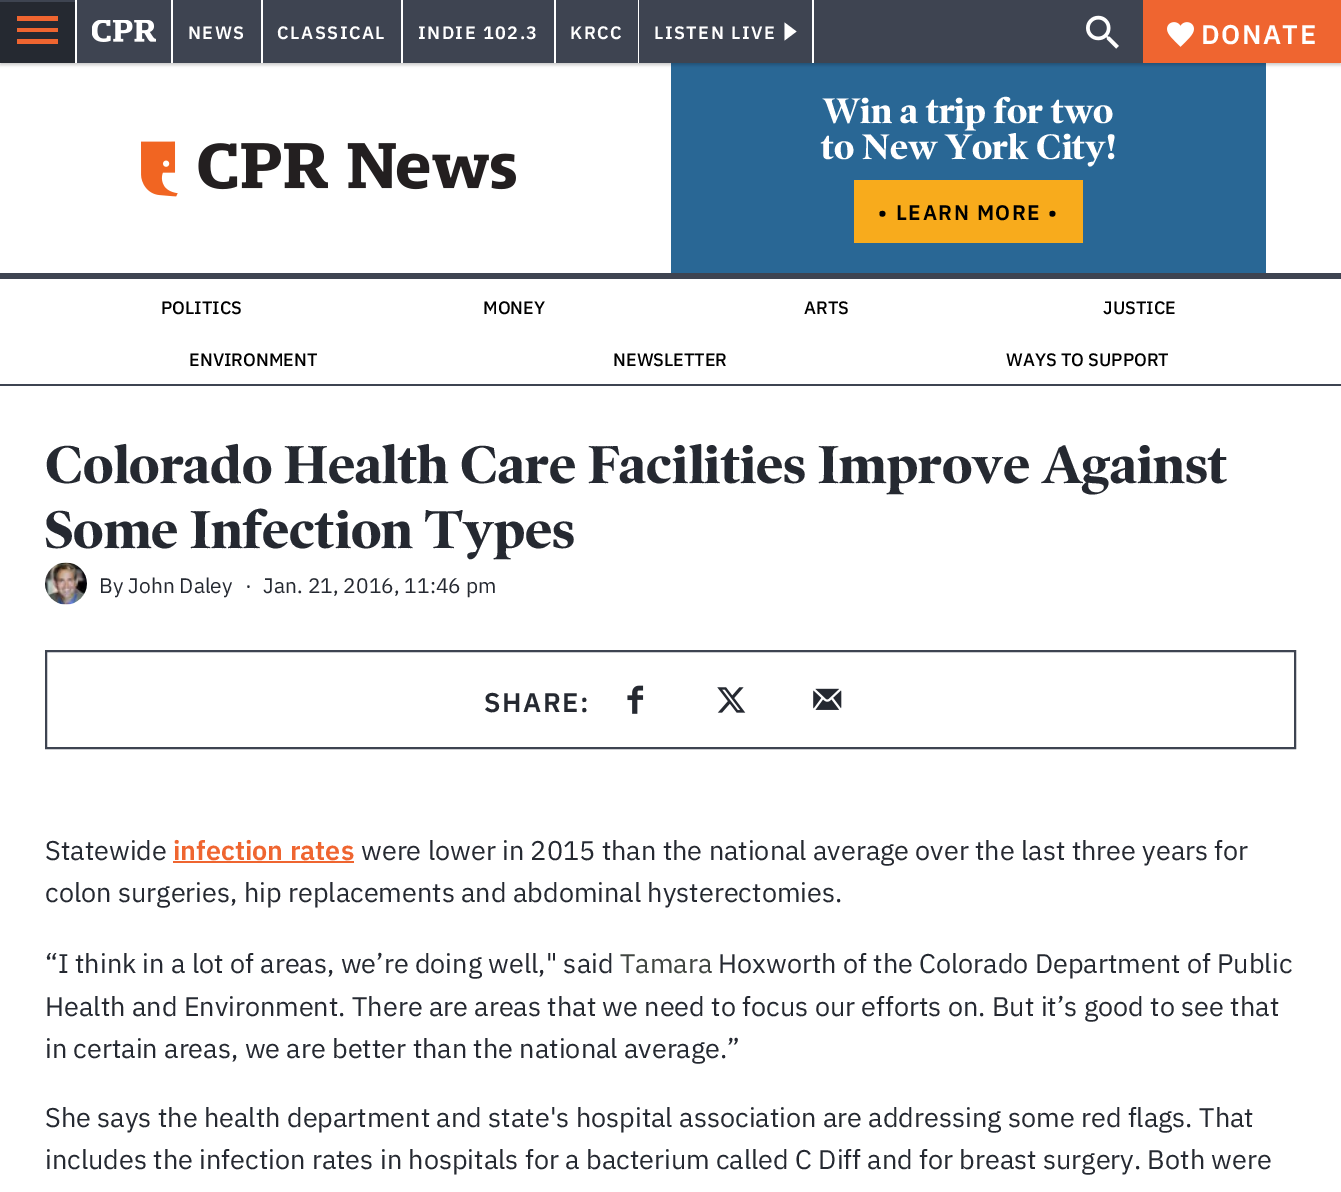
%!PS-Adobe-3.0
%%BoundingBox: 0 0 1341 1192
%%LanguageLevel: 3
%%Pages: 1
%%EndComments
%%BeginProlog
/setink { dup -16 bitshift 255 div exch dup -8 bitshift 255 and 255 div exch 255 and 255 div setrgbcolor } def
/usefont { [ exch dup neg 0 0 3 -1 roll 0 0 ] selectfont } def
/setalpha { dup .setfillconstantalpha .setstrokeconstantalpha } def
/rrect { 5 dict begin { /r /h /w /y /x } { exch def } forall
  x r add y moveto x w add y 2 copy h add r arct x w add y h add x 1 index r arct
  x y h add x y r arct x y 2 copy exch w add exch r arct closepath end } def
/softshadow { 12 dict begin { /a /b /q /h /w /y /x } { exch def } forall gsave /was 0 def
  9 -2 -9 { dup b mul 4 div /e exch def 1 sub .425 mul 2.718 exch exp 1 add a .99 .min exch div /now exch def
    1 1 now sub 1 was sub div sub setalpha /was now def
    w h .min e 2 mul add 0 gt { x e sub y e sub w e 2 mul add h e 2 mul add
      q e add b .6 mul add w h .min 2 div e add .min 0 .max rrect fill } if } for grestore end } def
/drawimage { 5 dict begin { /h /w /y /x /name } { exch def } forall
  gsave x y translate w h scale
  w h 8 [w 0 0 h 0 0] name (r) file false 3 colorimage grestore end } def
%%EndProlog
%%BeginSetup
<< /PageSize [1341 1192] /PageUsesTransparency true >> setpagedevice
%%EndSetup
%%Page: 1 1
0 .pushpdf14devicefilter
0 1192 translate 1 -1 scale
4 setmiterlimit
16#FFFFFF setink
0 0 1341 1192 rectfill
16#296795 setink
671 63 595 210 rectfill
16#000000 setink
0 2 1341 63 0 1.5 0.2 softshadow
16#3E4451 setink
0 0 1143 63 rectfill
16#252931 setink
0 2 75 61 rectfill
16#EF6530 setink
17 44 moveto 58 44 lineto 58 39 lineto 17 39 lineto closepath 17 32 moveto 58 32 lineto 58 28 lineto 17 28 lineto closepath 17 16 moveto 17 21 lineto 58 21 lineto 58 16 lineto closepath fill
16#FFFFFF setink
171 0 2 63 rectfill
75 0 2 63 rectfill
(img1.raw) 92 20 64 22 drawimage
261 0 2 63 rectfill
/IBMPlexSans-SemiBold 18 usefont
188 39 moveto 1.5 0 (NEWS) ashow
401 0 2 63 rectfill
277 39 moveto 1.5 0 (CLASSICAL) ashow
554 0 2 63 rectfill
418 39 moveto 1.5 0 (INDIE 102.3) ashow
638 0 1 63 rectfill
570 39 moveto 1.5 0 (KRCC) ashow
812 0 2 63 rectfill
654 39 moveto 1.5 0 (LISTEN LIVE) ashow
784.5 40.5 moveto 784.5 22.5 lineto 796.5 31.5 lineto closepath fill
(img2.raw) 1086 15 33 34 drawimage
16#EF6530 setink
1143 0 198 63 rectfill
(img3.raw) 1167 22 27 25 drawimage
/IBMPlexSans-SemiBold 27 usefont
16#FFFFFF setink
1201 44 moveto 1.5 0 (DONATE) ashow
16#3E4451 setink
0 273 1341 6 rectfill
(img4.raw) 141 141 375 56 drawimage
/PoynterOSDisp-Bold 36 usefont
16#FFFFFF setink
823 123 moveto (Win a trip for two) show
821 159 moveto (to New York City!) show
16#F8AB1C setink
854 180 229 63 rectfill
/IBMPlexSans-SemiBold 21 usefont
16#000000 setink
878 220 moveto 1.5 0 (•) ashow
896 220 moveto 1.5 0 (LEARN MORE) ashow
1048 220 moveto 1.5 0 (•) ashow
16#3E4451 setink
0 384 1341 2 rectfill
/IBMPlexSans-Medium 18 usefont
16#000000 setink
[
    [(POLITICS) 161 314]
    [(MONEY) 483 314]
    [(ARTS) 804 314]
    [(JUSTICE) 1103 314]
    [(ENVIRONMENT) 189 366]
    [(NEWSLETTER) 613 366]
    [(WAYS TO SUPPORT) 1006 366]
] { aload pop moveto show } forall
/PoynterOSDisp-Bold 54 usefont
16#252931 setink
45 483 moveto (Colorado Health Care Facilities Improve Against) show
45 548 moveto (Some Infection Types) show
(img5.raw) 45 562 42 43 drawimage
/IBMPlexSans-Regular 21 usefont
[
    [(By John Daley) 99 593]
    [(·) 245 593]
    [(Jan. 21, 2016, 11:46 pm) 263 593]
] { aload pop moveto show } forall
16#3E4451 setink
2 setlinewidth
46 651 1249 97 rectstroke
/IBMPlexSans-SemiBold 27 usefont
16#252931 setink
484 712 moveto 1.5 0 (SHARE:) ashow
(img6.raw) 627 685 17 29 drawimage
(img7.raw) 717 687 29 26 drawimage
(img8.raw) 813 688 29 22 drawimage
/IBMPlexSans-Regular 27 usefont
45 860 moveto (Statewide) show
/IBMPlexSans-SemiBold 27 usefont
16#EF6530 setink
173 860 moveto (infection rates) show
173 861 181 2 rectfill
/IBMPlexSans-Regular 27 usefont
16#252931 setink
[
    [(were lower in 2015 than the national average over the last three years for) 361 860]
    [(colon surgeries, hip replacements and abdominal hysterectomies.) 45 902]
    [(“I think in a lot of areas, we’re doing well," said) 45 973]
] { aload pop moveto show } forall
16#404540 setink
620 973 moveto (Tamara) show
16#252931 setink
[
    [(Hoxworth of the Colorado Department of Public) 718 973]
    [(Health and Environment. There are areas that we need to focus our efforts on. But it’s good to see that) 45 1016]
    [(in certain areas, we are better than the national average.”) 45 1058]
    [(She says the health department and state's hospital association are addressing some red flags. That) 45 1127]
    [(includes the infection rates in hospitals for a bacterium called C Diff and for breast surgery. Both were) 45 1169]
] { aload pop moveto show } forall
.poppdf14devicefilter showpage
%%EOF
